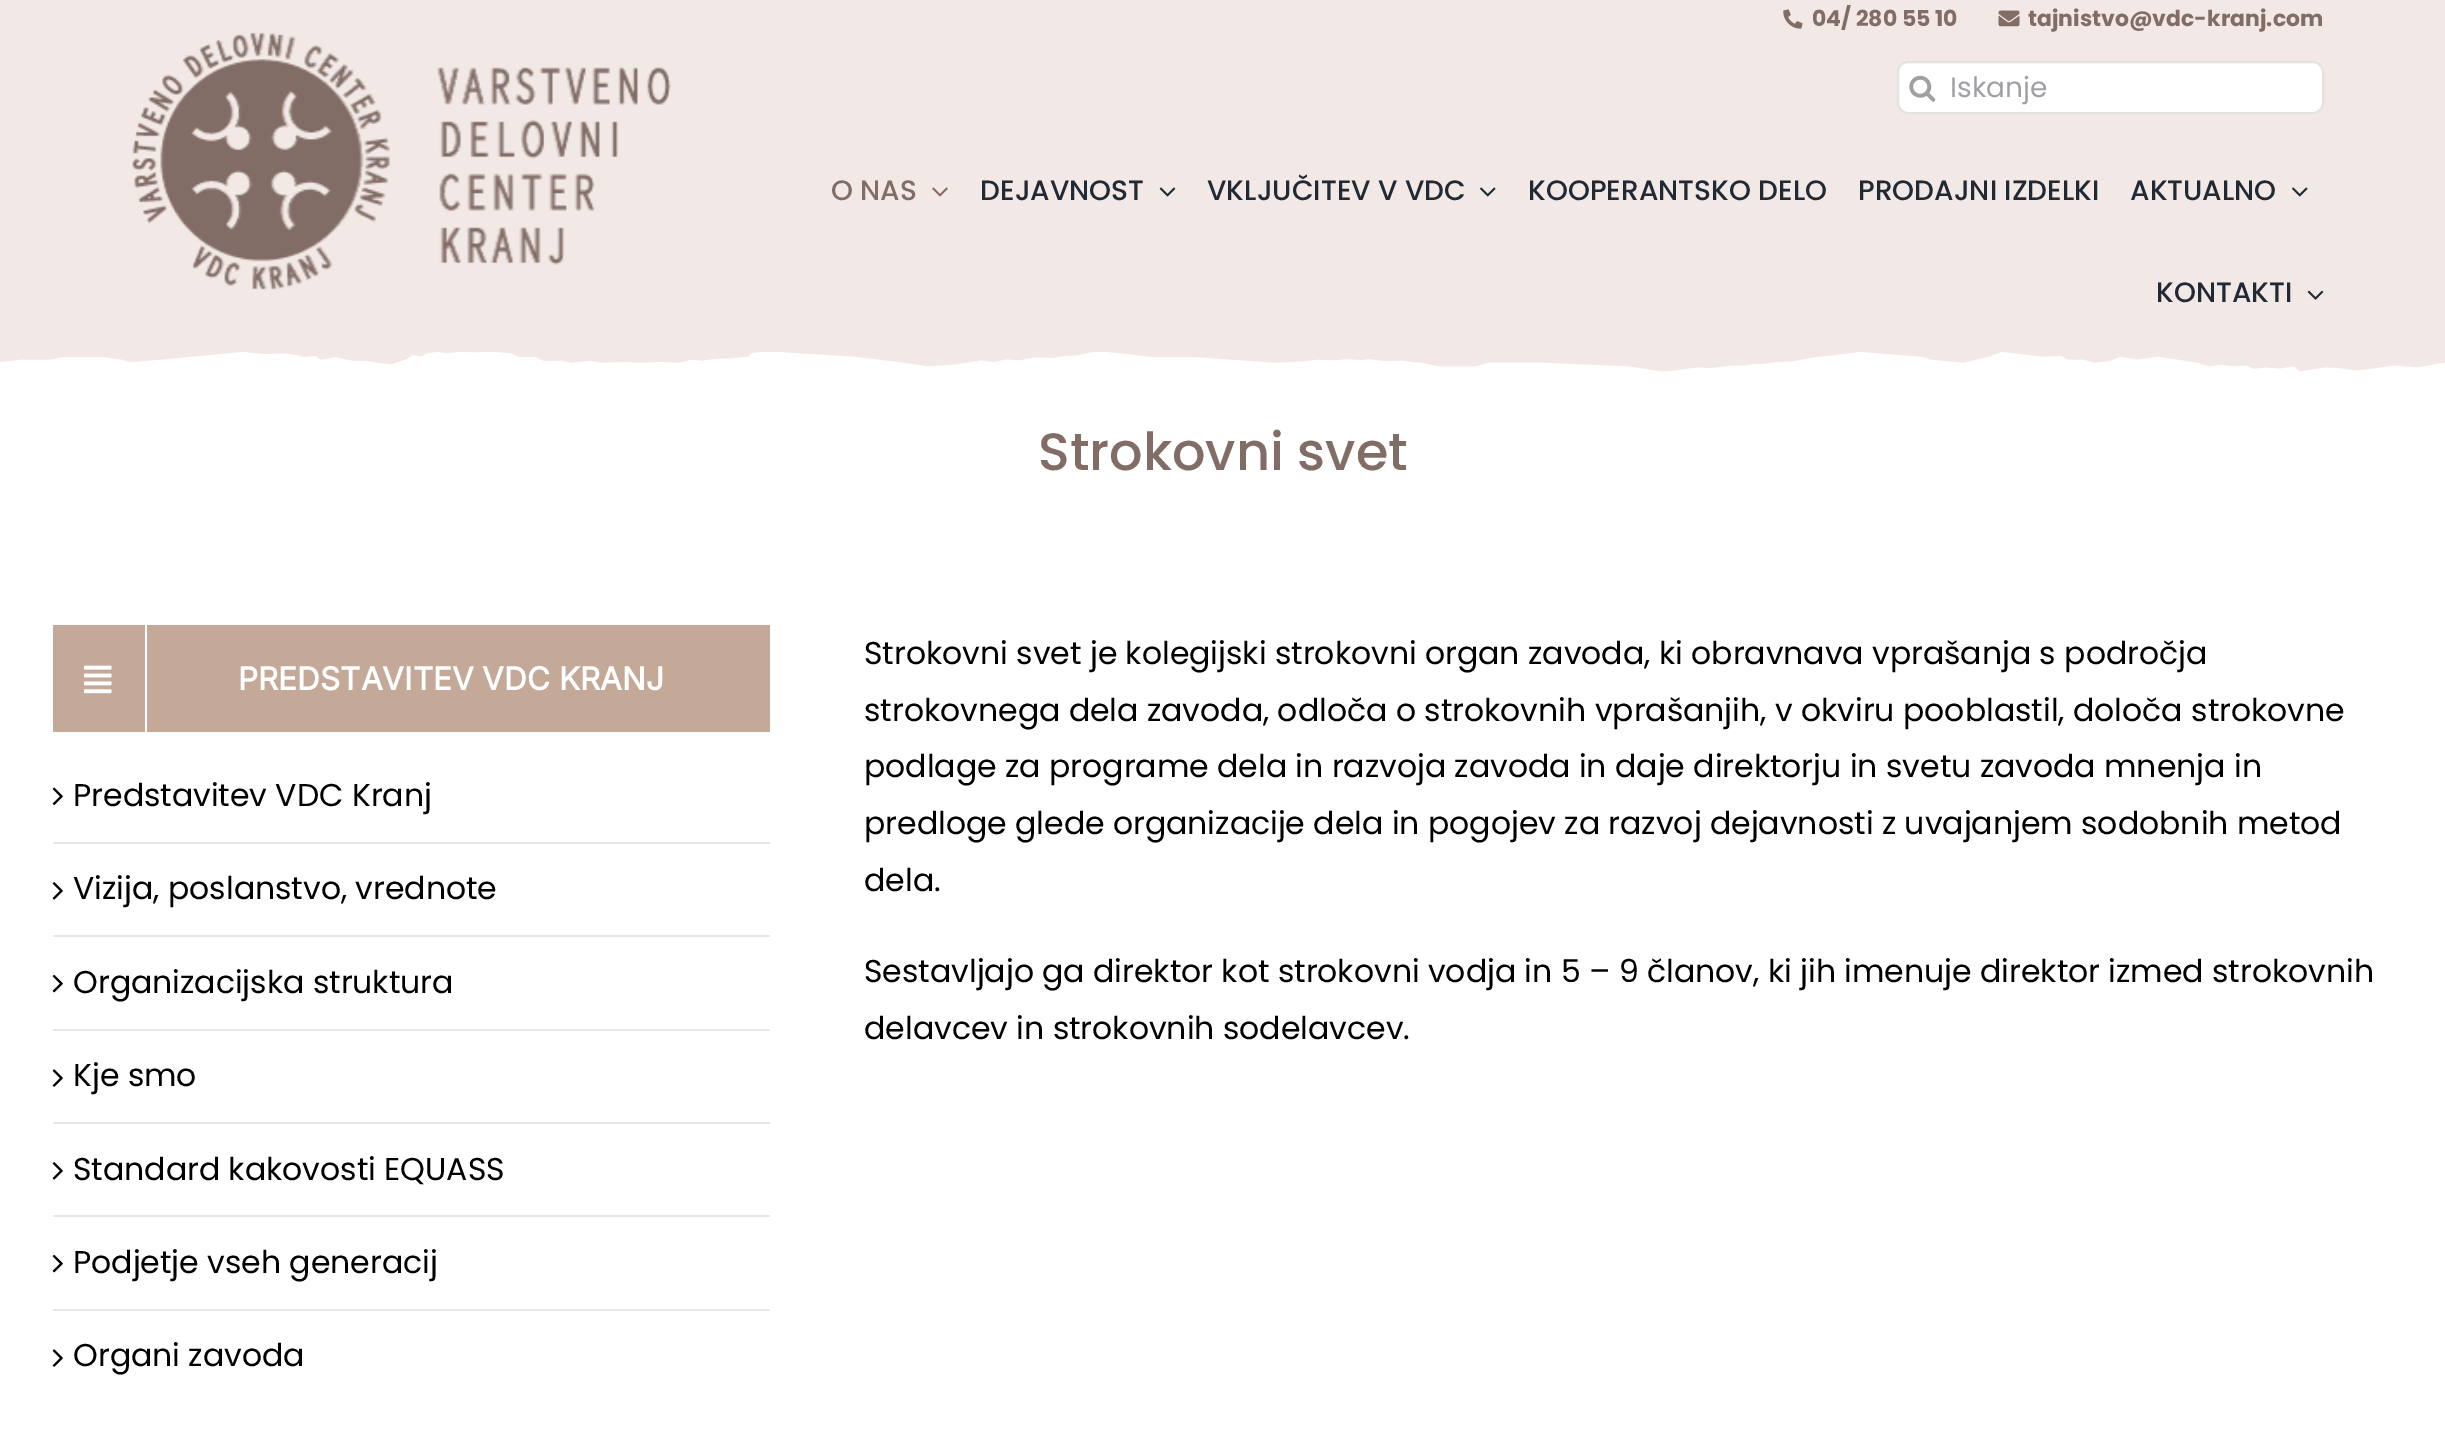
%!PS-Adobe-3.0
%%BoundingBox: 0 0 2445 1440
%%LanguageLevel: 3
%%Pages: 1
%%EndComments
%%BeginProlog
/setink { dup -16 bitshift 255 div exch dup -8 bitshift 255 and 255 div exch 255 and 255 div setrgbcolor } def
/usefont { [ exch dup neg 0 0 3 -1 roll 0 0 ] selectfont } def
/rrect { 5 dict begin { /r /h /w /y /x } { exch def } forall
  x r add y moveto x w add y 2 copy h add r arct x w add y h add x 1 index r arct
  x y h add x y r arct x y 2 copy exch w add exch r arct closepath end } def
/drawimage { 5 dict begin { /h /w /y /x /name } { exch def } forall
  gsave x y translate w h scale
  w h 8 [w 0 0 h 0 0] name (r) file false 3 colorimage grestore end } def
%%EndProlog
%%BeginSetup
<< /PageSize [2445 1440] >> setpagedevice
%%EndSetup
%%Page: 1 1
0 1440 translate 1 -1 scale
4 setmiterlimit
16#FFFFFF setink
0 0 2445 1440 rectfill
16#F2E9E6 setink
0 0 2445 320 rectfill
(img1.raw) 132 32 539 258 drawimage
(img2.raw) 1783 9 20 20 drawimage
/Poppins-Bold 22 usefont
16#816D66 setink
1812 26 moveto (04/ 280 55 10) show
(img3.raw) 1998 10 22 17 drawimage
2028 26 moveto (tajnistvo@vdc-kranj.com) show
16#FFFFFF setink
1898 62 425 51 10 rrect gsave fill grestore
16#E2E2E2 setink
2 setlinewidth
stroke
(img4.raw) 1909 75 27 27 drawimage
/Poppins-Regular 28 usefont
16#9EA0A4 setink
1950 97 moveto (Iskanje) show
/Poppins-Medium 28 usefont
16#816D66 setink
831 200 moveto (O NAS) show
(img5.raw) 932 187 16 10 drawimage
16#212934 setink
980 200 moveto (DEJAVNOST) show
(img6.raw) 1159 187 17 10 drawimage
1207 200 moveto (VKLJUČITEV V VDC) show
(img7.raw) 1480 187 16 10 drawimage
[
    [(KOOPERANTSKO DELO) 1528 200]
    [(PRODAJNI IZDELKI) 1858 200]
    [(AKTUALNO) 2130 200]
] { aload pop moveto show } forall
(img7.raw) 2292 187 16 10 drawimage
2156 302 moveto (KONTAKTI) show
(img8.raw) 2307 290 17 10 drawimage
(img9.raw) 0 320 2445 52 drawimage
/Poppins-Medium 52.5 usefont
16#816D66 setink
1038 470 moveto (Strokovni svet) show
16#C4A998 setink
53 625 717 107 rectfill
16#FFFFFF setink
145 625 2 107 rectfill
(img10.raw) 84 665 28 29 drawimage
/Inter-Bold 31.5 usefont
238 690 moveto (PREDSTAVITEV VDC KRANJ) show
16#E7E7E7 setink
53 842 717 2 rectfill
(img11.raw) 52 787 11 19 drawimage
/Poppins-Regular 31.5 usefont
16#000000 setink
73 806 moveto (Predstavitev VDC Kranj) show
16#E7E7E7 setink
53 935 717 2 rectfill
(img12.raw) 52 882 11 18 drawimage
16#000000 setink
73 899 moveto (Vizija, poslanstvo, vrednote) show
16#E7E7E7 setink
53 1029 717 2 rectfill
(img13.raw) 52 974 11 19 drawimage
16#000000 setink
73 993 moveto (Organizacijska struktura) show
16#E7E7E7 setink
53 1122 717 2 rectfill
(img14.raw) 52 1069 11 18 drawimage
16#000000 setink
73 1086 moveto (Kje smo) show
16#E7E7E7 setink
53 1215 717 2 rectfill
(img12.raw) 52 1162 11 18 drawimage
16#000000 setink
73 1180 moveto (Standard kakovosti EQUASS) show
16#E7E7E7 setink
53 1309 717 2 rectfill
(img13.raw) 52 1254 11 19 drawimage
16#000000 setink
73 1273 moveto (Podjetje vseh generacij) show
(img14.raw) 52 1349 11 18 drawimage
[
    [(Organi zavoda) 73 1366]
    [(Strokovni svet je kolegijski strokovni organ zavoda, ki obravnava vprašanja s področja) 864 664]
    [(strokovnega dela zavoda, odloča o strokovnih vprašanjih, v okviru pooblastil, določa strokovne) 864 721]
    [(podlage za programe dela in razvoja zavoda in daje direktorju in svetu zavoda mnenja in) 864 777]
    [(predloge glede organizacije dela in pogojev za razvoj dejavnosti z uvajanjem sodobnih metod) 864 834]
    [(dela.) 864 891]
    [(Sestavljajo ga direktor kot strokovni vodja in 5 – 9 članov, ki jih imenuje direktor izmed strokovnih) 864 982]
    [(delavcev in strokovnih sodelavcev.) 864 1039]
] { aload pop moveto show } forall
showpage
%%EOF
